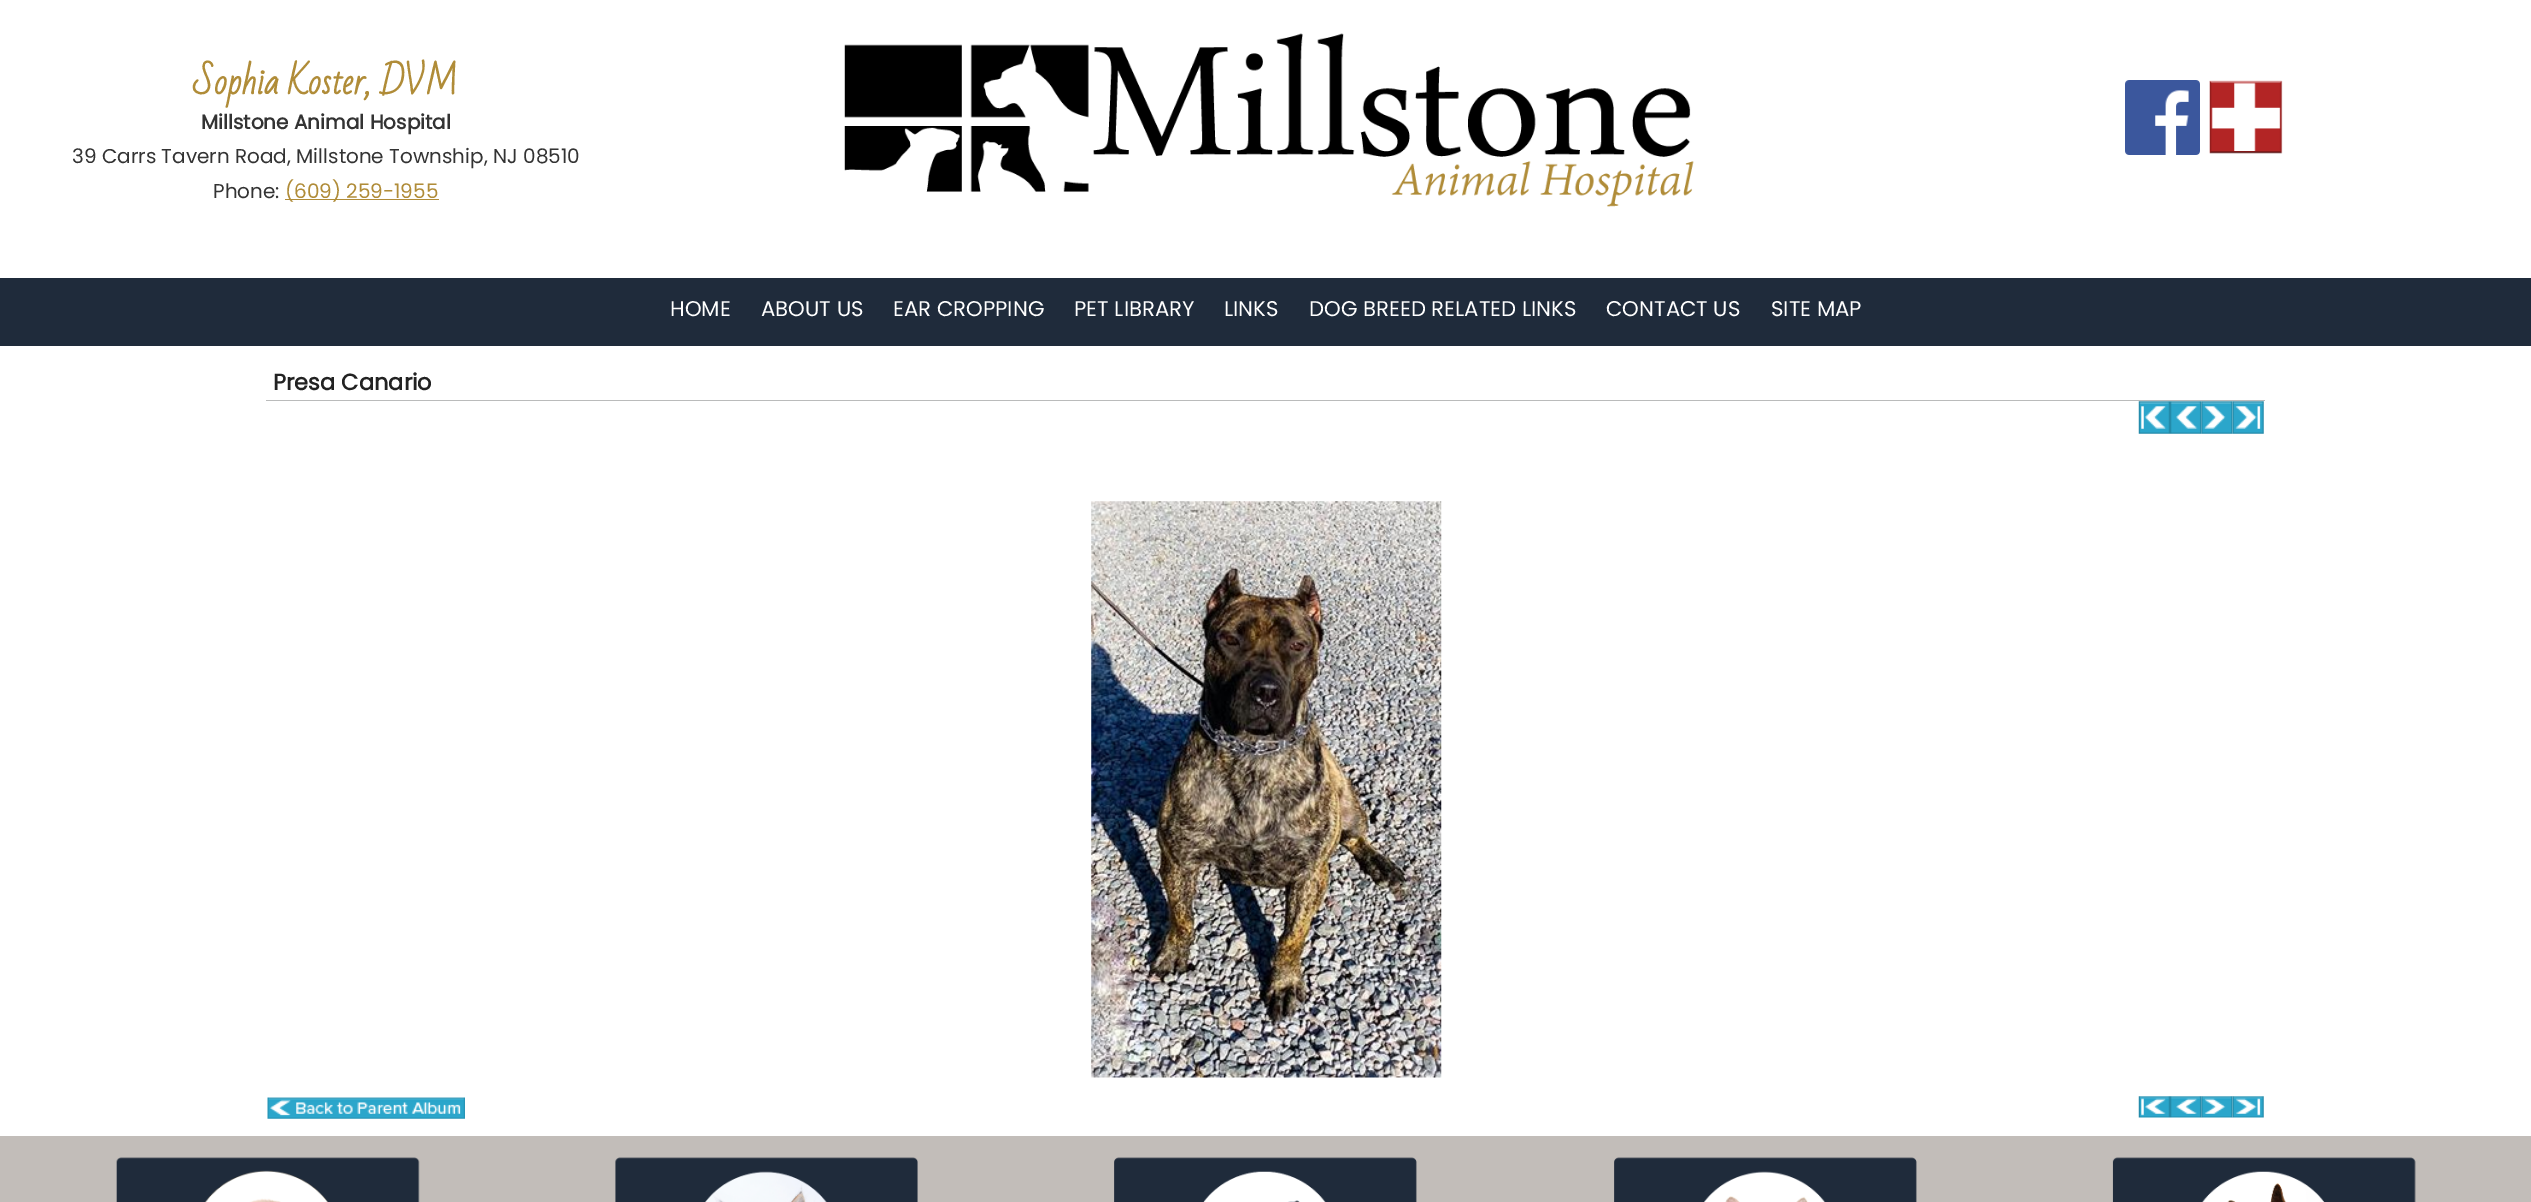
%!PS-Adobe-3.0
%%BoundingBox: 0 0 2531 1202
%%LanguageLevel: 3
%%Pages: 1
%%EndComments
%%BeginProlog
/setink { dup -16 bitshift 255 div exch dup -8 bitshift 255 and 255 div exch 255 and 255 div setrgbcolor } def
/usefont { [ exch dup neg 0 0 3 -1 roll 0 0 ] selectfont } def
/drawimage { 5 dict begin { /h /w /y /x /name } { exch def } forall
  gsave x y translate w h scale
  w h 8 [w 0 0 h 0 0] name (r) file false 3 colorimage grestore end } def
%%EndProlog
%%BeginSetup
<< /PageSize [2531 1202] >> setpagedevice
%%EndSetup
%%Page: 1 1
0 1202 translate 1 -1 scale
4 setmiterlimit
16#FFFFFF setink
0 0 2531 1202 rectfill
/BadScript-Bold 33.75 usefont
16#B08C38 setink
193 94 moveto (Sophia Koster, DVM) show
/Poppins-Bold 20 usefont
16#333333 setink
201 129 moveto (Millstone Animal Hospital) show
/Poppins-Regular 20 usefont
72 163 moveto (39 Carrs Tavern Road, Millstone Township, NJ 08510) show
213 198 moveto (Phone:) show
16#B08C38 setink
285 199 154 1 rectfill
285 198 moveto (\(609\) 259-1955) show
(img1.raw) 844 33 850 174 drawimage
(img2.raw) 2125 80 75 75 drawimage
(img3.raw) 2209 80 74 74 drawimage
16#1F2B3B setink
0 278 2531 68 rectfill
/Poppins-Regular 21.25 usefont
16#FFFFFF setink
[
    [(HOME) 670 316]
    [(ABOUT US) 761 316]
    [(EAR CROPPING) 893 316]
    [(PET LIBRARY) 1074 316]
    [(LINKS) 1224 316]
    [(DOG BREED RELATED LINKS) 1309 316]
    [(CONTACT US) 1606 316]
    [(SITE MAP) 1771 316]
] { aload pop moveto show } forall
16#BABBBB setink
266 400 1999 1 rectfill
/Poppins-Bold 22.5 usefont
16#222222 setink
273 390 moveto (Presa Canario) show
(img4.raw) 2138 401 32 33 drawimage
(img5.raw) 2170 401 32 33 drawimage
(img6.raw) 2201 401 32 33 drawimage
(img7.raw) 2232 401 32 33 drawimage
(img8.raw) 1091 501 351 577 drawimage
(img9.raw) 267 1097 198 22 drawimage
(img10.raw) 2138 1096 32 22 drawimage
(img11.raw) 2170 1096 32 22 drawimage
(img12.raw) 2201 1096 32 22 drawimage
(img13.raw) 2232 1096 32 22 drawimage
16#C2BDB9 setink
0 1136 2531 66 rectfill
(img14.raw) 116 1157 304 45 drawimage
(img15.raw) 615 1157 303 45 drawimage
(img16.raw) 1114 1157 303 45 drawimage
(img17.raw) 1614 1157 303 45 drawimage
(img18.raw) 2112 1157 304 45 drawimage
showpage
%%EOF
